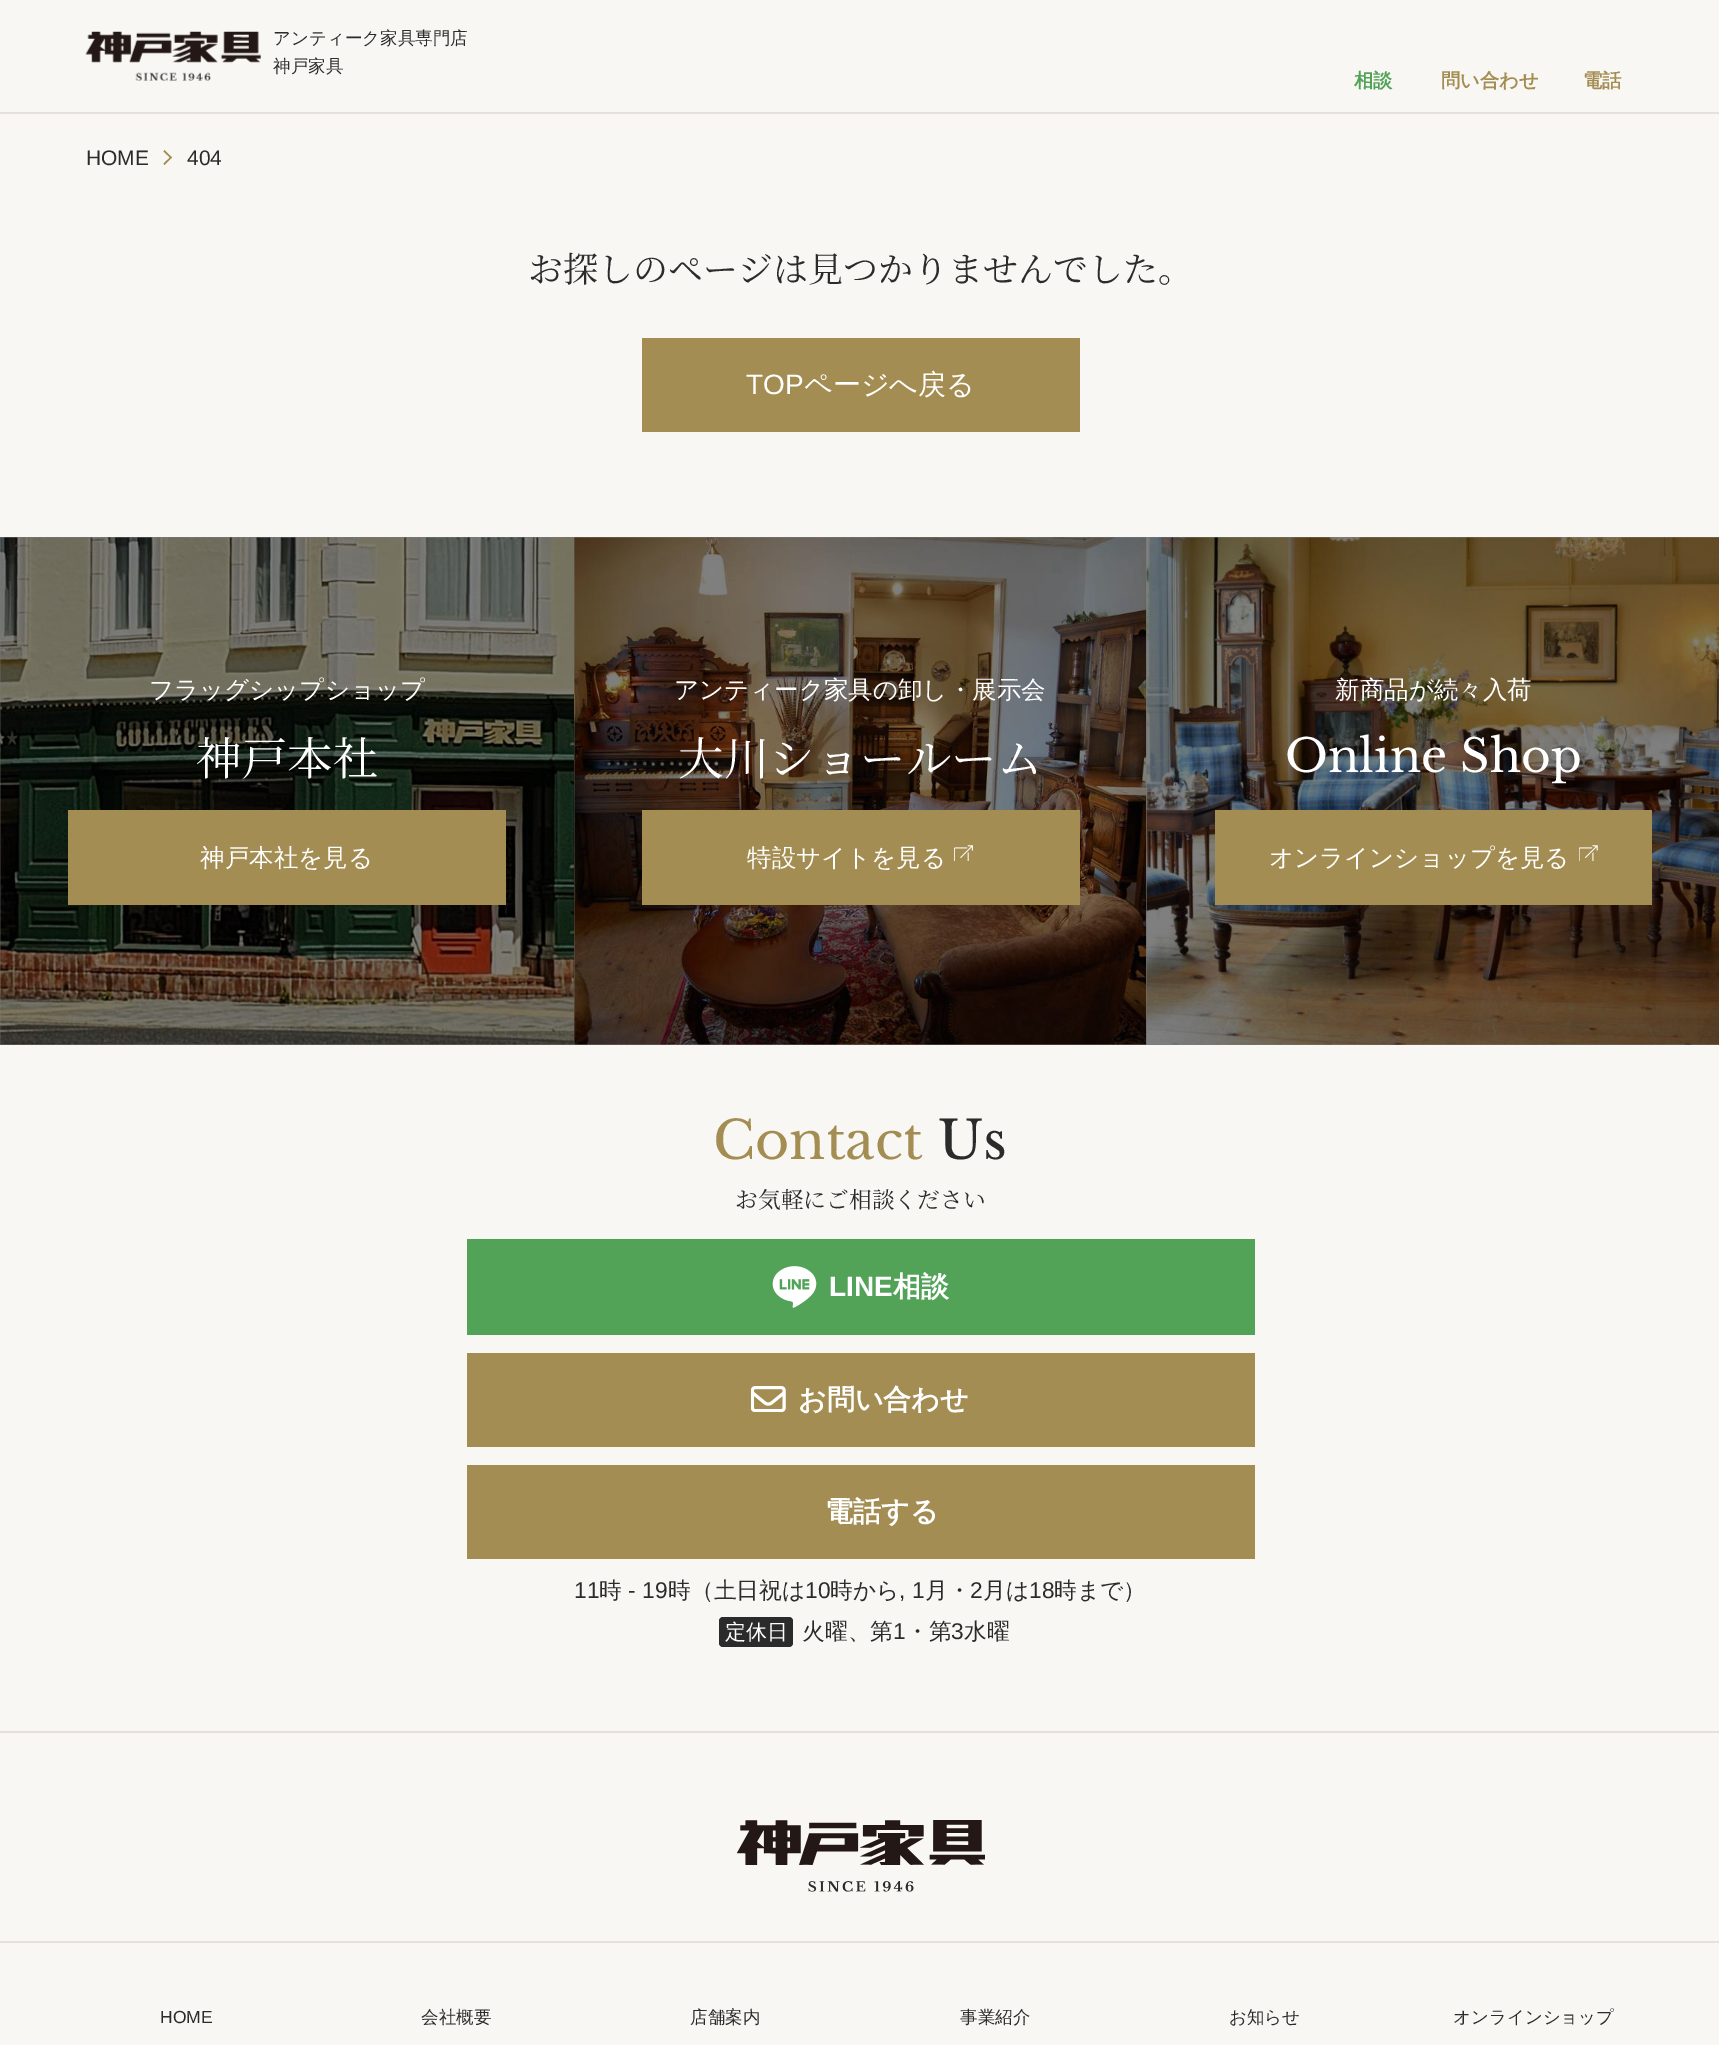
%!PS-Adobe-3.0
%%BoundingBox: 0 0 1719 2045
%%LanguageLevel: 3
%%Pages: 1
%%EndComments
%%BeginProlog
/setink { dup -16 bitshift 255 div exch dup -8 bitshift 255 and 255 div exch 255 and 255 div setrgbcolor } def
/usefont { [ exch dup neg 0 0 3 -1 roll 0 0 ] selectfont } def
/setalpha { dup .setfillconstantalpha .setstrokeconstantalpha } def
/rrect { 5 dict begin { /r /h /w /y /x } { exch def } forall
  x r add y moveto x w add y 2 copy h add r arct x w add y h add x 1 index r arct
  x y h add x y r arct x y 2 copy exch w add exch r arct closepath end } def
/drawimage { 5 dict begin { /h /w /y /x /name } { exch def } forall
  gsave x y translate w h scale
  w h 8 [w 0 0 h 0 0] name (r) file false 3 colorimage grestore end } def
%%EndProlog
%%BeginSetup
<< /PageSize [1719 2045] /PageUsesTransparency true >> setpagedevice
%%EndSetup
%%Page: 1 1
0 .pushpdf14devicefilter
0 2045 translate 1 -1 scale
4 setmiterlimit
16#F8F7F4 setink
0 0 1719 2045 rectfill
16#7C7C7A setink
0 537 1146 508 rectfill
16#E5E0E0 setink
0 112 1719 2 rectfill
(img1.raw) 85 31 176 50 drawimage
/WenQuanYiZenHei-Medium 17.5 usefont
16#2B2B2B setink
273 44 moveto (アンティーク家具専門店) show
273 72 moveto (神戸家具) show
/WenQuanYiZenHei-Bold 19.25 usefont
16#52A358 setink
1354 87 moveto (相談) show
16#A38D52 setink
1441 87 moveto (問い合わせ) show
1583 87 moveto (電話) show
/LiberationSans-Regular 21 usefont
16#2B2B2B setink
86 165 moveto (HOME) show
16#A38D52 setink
164.5 150 moveto 172 157.5 lineto 171 158.5 lineto 163.5 151.5 lineto closepath fill
171 156.5 moveto 172 157.5 lineto 164.5 165 lineto 163.5 163.5 lineto closepath fill
16#2B2B2B setink
187 165 moveto (404) show
/NotoSerifJP-Regular 35 usefont
528 282 moveto (お探しのページは見つかりませんでした。) show
16#A38D52 setink
642 338 438 94 rectfill
/LiberationSans-Regular 28 usefont
16#FFFFFF setink
746 394 moveto (TOP) show
/WenQuanYiZenHei-Medium 28 usefont
804 394 moveto (ページへ戻る) show
(img2.raw) 0 537 574 508 drawimage
/WenQuanYiZenHei-Medium 24.5 usefont
149 698 moveto (フラッグシップショップ) show
/NotoSerifJP-Regular 45.5 usefont
196 775 moveto (神戸本社) show
16#A38D52 setink
68 810 438 95 rectfill
/WenQuanYiZenHei-Medium 24.5 usefont
16#FFFFFF setink
200 866 moveto (神戸本社を見る) show
(img3.raw) 574 537 573 508 drawimage
674 698 moveto (アンティーク家具の卸し・展示会) show
/NotoSerifJP-Regular 45.5 usefont
678 775 moveto (大川ショールーム) show
16#A38D52 setink
642 810 438 95 rectfill
/WenQuanYiZenHei-Medium 24.5 usefont
16#FFFFFF setink
747 866 moveto (特設サイトを見る) show
(img4.raw) 954 845 19 16 drawimage
(img5.raw) 1146 537 573 508 drawimage
0.5 setalpha
16#000000 setink
1146 537 573 508 rectfill
1 setalpha
16#FFFFFF setink
1335 698 moveto (新商品が続々入荷) show
/LibreBaskerville-Regular 45.5 usefont
1285 772 moveto (Online Shop) show
16#A38D52 setink
1215 810 437 95 rectfill
/WenQuanYiZenHei-Medium 24.5 usefont
16#FFFFFF setink
1269 866 moveto (オンラインショップを見る) show
(img6.raw) 1579 845 19 16 drawimage
16#E5E0E0 setink
0 1731 1719 2 rectfill
/LibreBaskerville-Regular 52.5 usefont
16#A38D52 setink
713 1159 moveto (Contact) show
16#2B2B2B setink
938 1159 moveto (Us) show
/NotoSerifJP-Regular 22.75 usefont
735 1208 moveto (お気軽にご相談ください) show
16#52A358 setink
467 1239 788 96 rectfill
(img7.raw) 772 1266 45 42 drawimage
/LiberationSans-Bold 28 usefont
16#FFFFFF setink
829 1296 moveto (LINE) show
/WenQuanYiZenHei-Bold 28 usefont
893 1296 moveto (相談) show
16#A38D52 setink
467 1353 788 94 rectfill
(img8.raw) 751 1386 35 26 drawimage
16#FFFFFF setink
798 1409 moveto (お問い合わせ) show
16#A38D52 setink
467 1465 788 94 rectfill
16#FFFFFF setink
825 1521 moveto (電話する) show
/LiberationSans-Regular 22.75 usefont
16#2B2B2B setink
574 1598 moveto (11) show
/WenQuanYiZenHei-Medium 22.75 usefont
599 1598 moveto (時) show
/LiberationSans-Regular 22.75 usefont
628 1598 moveto (- 19) show
/WenQuanYiZenHei-Medium 22.75 usefont
668 1598 moveto (時（土日祝は) show
/LiberationSans-Regular 22.75 usefont
805 1598 moveto (10) show
/WenQuanYiZenHei-Medium 22.75 usefont
830 1598 moveto (時から) show
/LiberationSans-Regular 22.75 usefont
899 1598 moveto (, 1) show
/WenQuanYiZenHei-Medium 22.75 usefont
925 1598 moveto (月・) show
/LiberationSans-Regular 22.75 usefont
970 1598 moveto (2) show
/WenQuanYiZenHei-Medium 22.75 usefont
983 1598 moveto (月は) show
/LiberationSans-Regular 22.75 usefont
1029 1598 moveto (18) show
/WenQuanYiZenHei-Medium 22.75 usefont
1054 1598 moveto (時まで）) show
719 1617 74 30 4 rrect fill
/WenQuanYiZenHei-Medium 21 usefont
16#FFFFFF setink
725 1639 moveto (定休日) show
/WenQuanYiZenHei-Medium 22.75 usefont
16#2B2B2B setink
802 1639 moveto (火曜、第) show
/LiberationSans-Regular 22.75 usefont
893 1639 moveto (1) show
/WenQuanYiZenHei-Medium 22.75 usefont
906 1639 moveto (・第) show
/LiberationSans-Regular 22.75 usefont
951 1639 moveto (3) show
/WenQuanYiZenHei-Medium 22.75 usefont
964 1639 moveto (水曜) show
(img9.raw) 737 1820 248 72 drawimage
16#E5E0E0 setink
0 1941 1719 2 rectfill
/LiberationSans-Regular 17.5 usefont
16#2B2B2B setink
160 2023 moveto (HOME) show
/WenQuanYiZenHei-Medium 17.5 usefont
[
    [(会社概要) 421 2023]
    [(店舗案内) 690 2023]
    [(事業紹介) 960 2023]
    [(お知らせ) 1229 2023]
    [(オンラインショップ) 1453 2023]
] { aload pop moveto show } forall
.poppdf14devicefilter showpage
%%EOF
